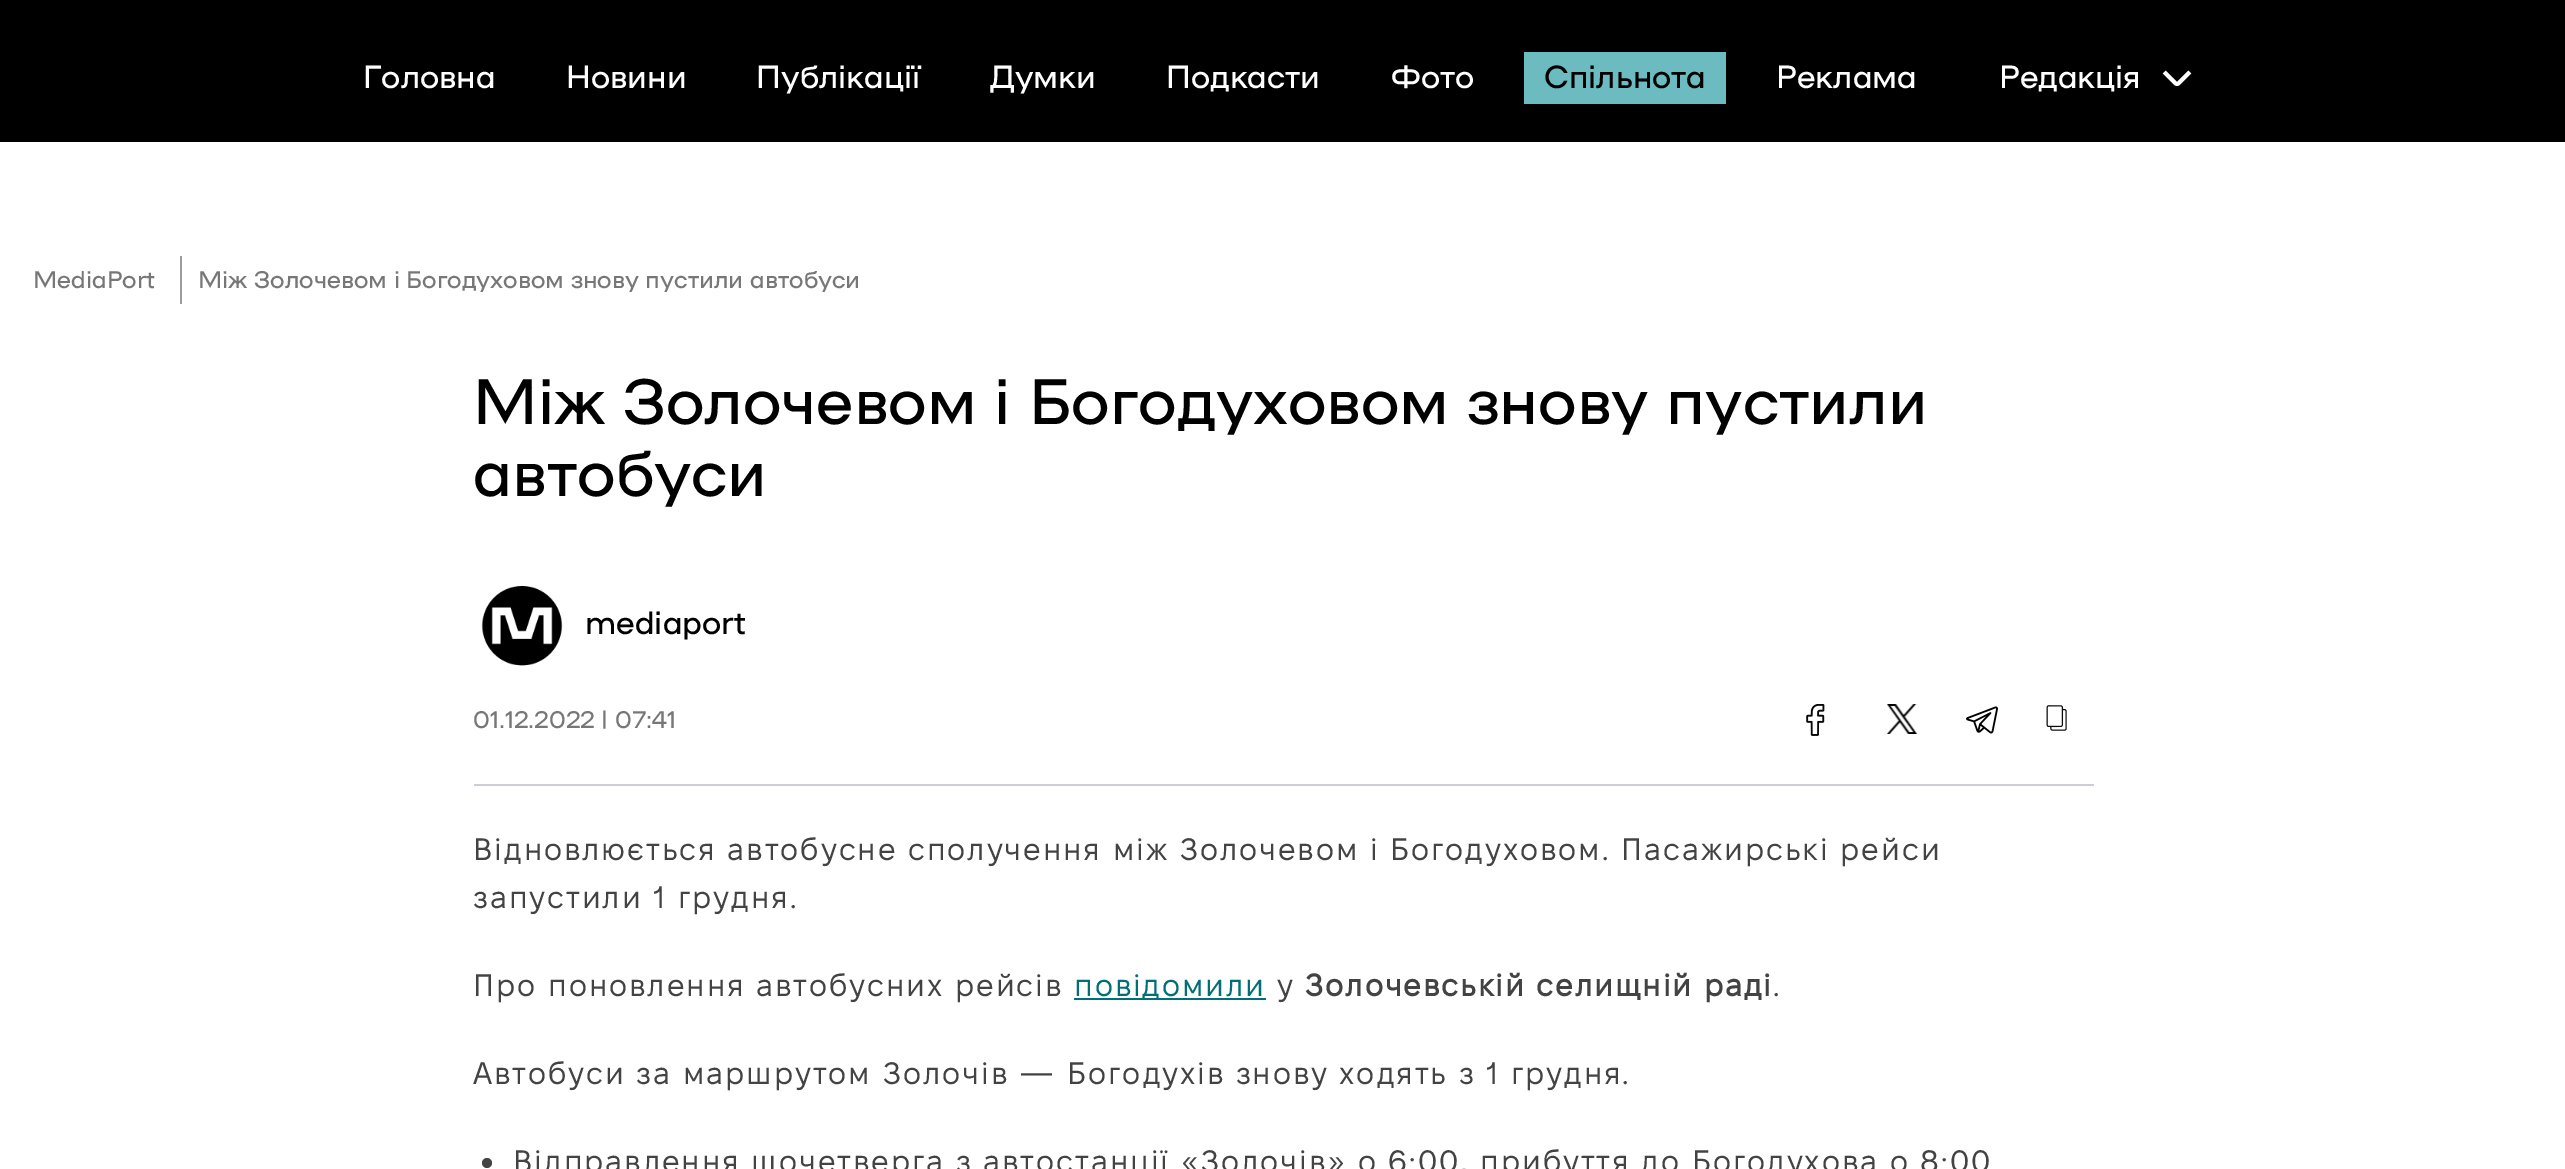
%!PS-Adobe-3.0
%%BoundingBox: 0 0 2565 1169
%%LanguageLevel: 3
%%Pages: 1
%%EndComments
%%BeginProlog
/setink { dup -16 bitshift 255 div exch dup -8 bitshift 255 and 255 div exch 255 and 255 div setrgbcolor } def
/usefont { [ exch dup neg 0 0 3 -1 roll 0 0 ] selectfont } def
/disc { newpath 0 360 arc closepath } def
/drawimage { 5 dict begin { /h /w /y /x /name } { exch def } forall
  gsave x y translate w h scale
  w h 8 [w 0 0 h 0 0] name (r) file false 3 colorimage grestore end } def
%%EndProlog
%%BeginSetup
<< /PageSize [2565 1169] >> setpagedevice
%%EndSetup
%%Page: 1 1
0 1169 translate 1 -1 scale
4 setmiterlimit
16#FFFFFF setink
0 0 2565 1169 rectfill
16#000000 setink
0 0 2565 142 rectfill
/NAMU-Black 32 usefont
16#FFFFFF setink
[
    [(Головна) 363 88]
    [(Новини) 566 88]
    [(Публікації) 756 88]
    [(Думки) 990 88]
    [(Подкасти) 1166 88]
    [(Фото) 1391 88]
] { aload pop moveto show } forall
16#6BBBC1 setink
1524 52 202 52 rectfill
16#000000 setink
1544 88 moveto (Спільнота) show
16#FFFFFF setink
1776 88 moveto (Реклама) show
1999 88 moveto (Редакція) show
(img1.raw) 2162 70 30 16 drawimage
/NAMU-Black 24 usefont
16#777777 setink
33 288 moveto (MediaPort) show
16#9B9B9B setink
180 256 2 48 rectfill
16#777777 setink
198 288 moveto (Між Золочевом і Богодуховом знову пустили автобуси) show
/NAMU-Black 64 usefont
16#000000 setink
473 424 moveto (Між Золочевом і Богодуховом знову пустили) show
473 496 moveto (автобуси) show
(img2.raw) 481 585 82 81 drawimage
/NAMU-Black 32 usefont
585 634 moveto (mediaport) show
16#CECCD6 setink
474 784 1620 2 rectfill
/NAMU-Black 24 usefont
16#777777 setink
473 728 moveto (01.12.2022 | 07:41) show
(img3.raw) 1806 704 19 32 drawimage
(img4.raw) 1886 704 32 30 drawimage
(img5.raw) 1966 706 32 28 drawimage
(img6.raw) 2046 705 21 26 drawimage
/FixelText-Regular 31 usefont
16#434343 setink
473 860 moveto 2 0 (Відновлюється автобусне сполучення між Золочевом і Богодуховом. Пасажирські рейси) ashow
473 908 moveto 2 0 (запустили 1 грудня.) ashow
473 996 moveto 2 0 (Про поновлення автобусних рейсів) ashow
16#006F77 setink
1074 998 192 2 rectfill
1074 996 moveto 2 0 (повідомили) ashow
16#434343 setink
1277 996 moveto 2 0 (у) ashow
/FixelText-Bold 31 usefont
1305 996 moveto 2 0 (Золочевській селищній раді) ashow
/FixelText-Regular 31 usefont
1773 996 moveto 2 0 (.) ashow
473 1084 moveto 2 0 (Автобуси за маршрутом Золочів — Богодухів знову ходять з 1 грудня.) ashow
487 1163 5 disc fill
513 1172 moveto 2 0 (Відправлення щочетверга з автостанції «Золочів» о 6:00, прибуття до Богодухова о 8:00) ashow
showpage
%%EOF
